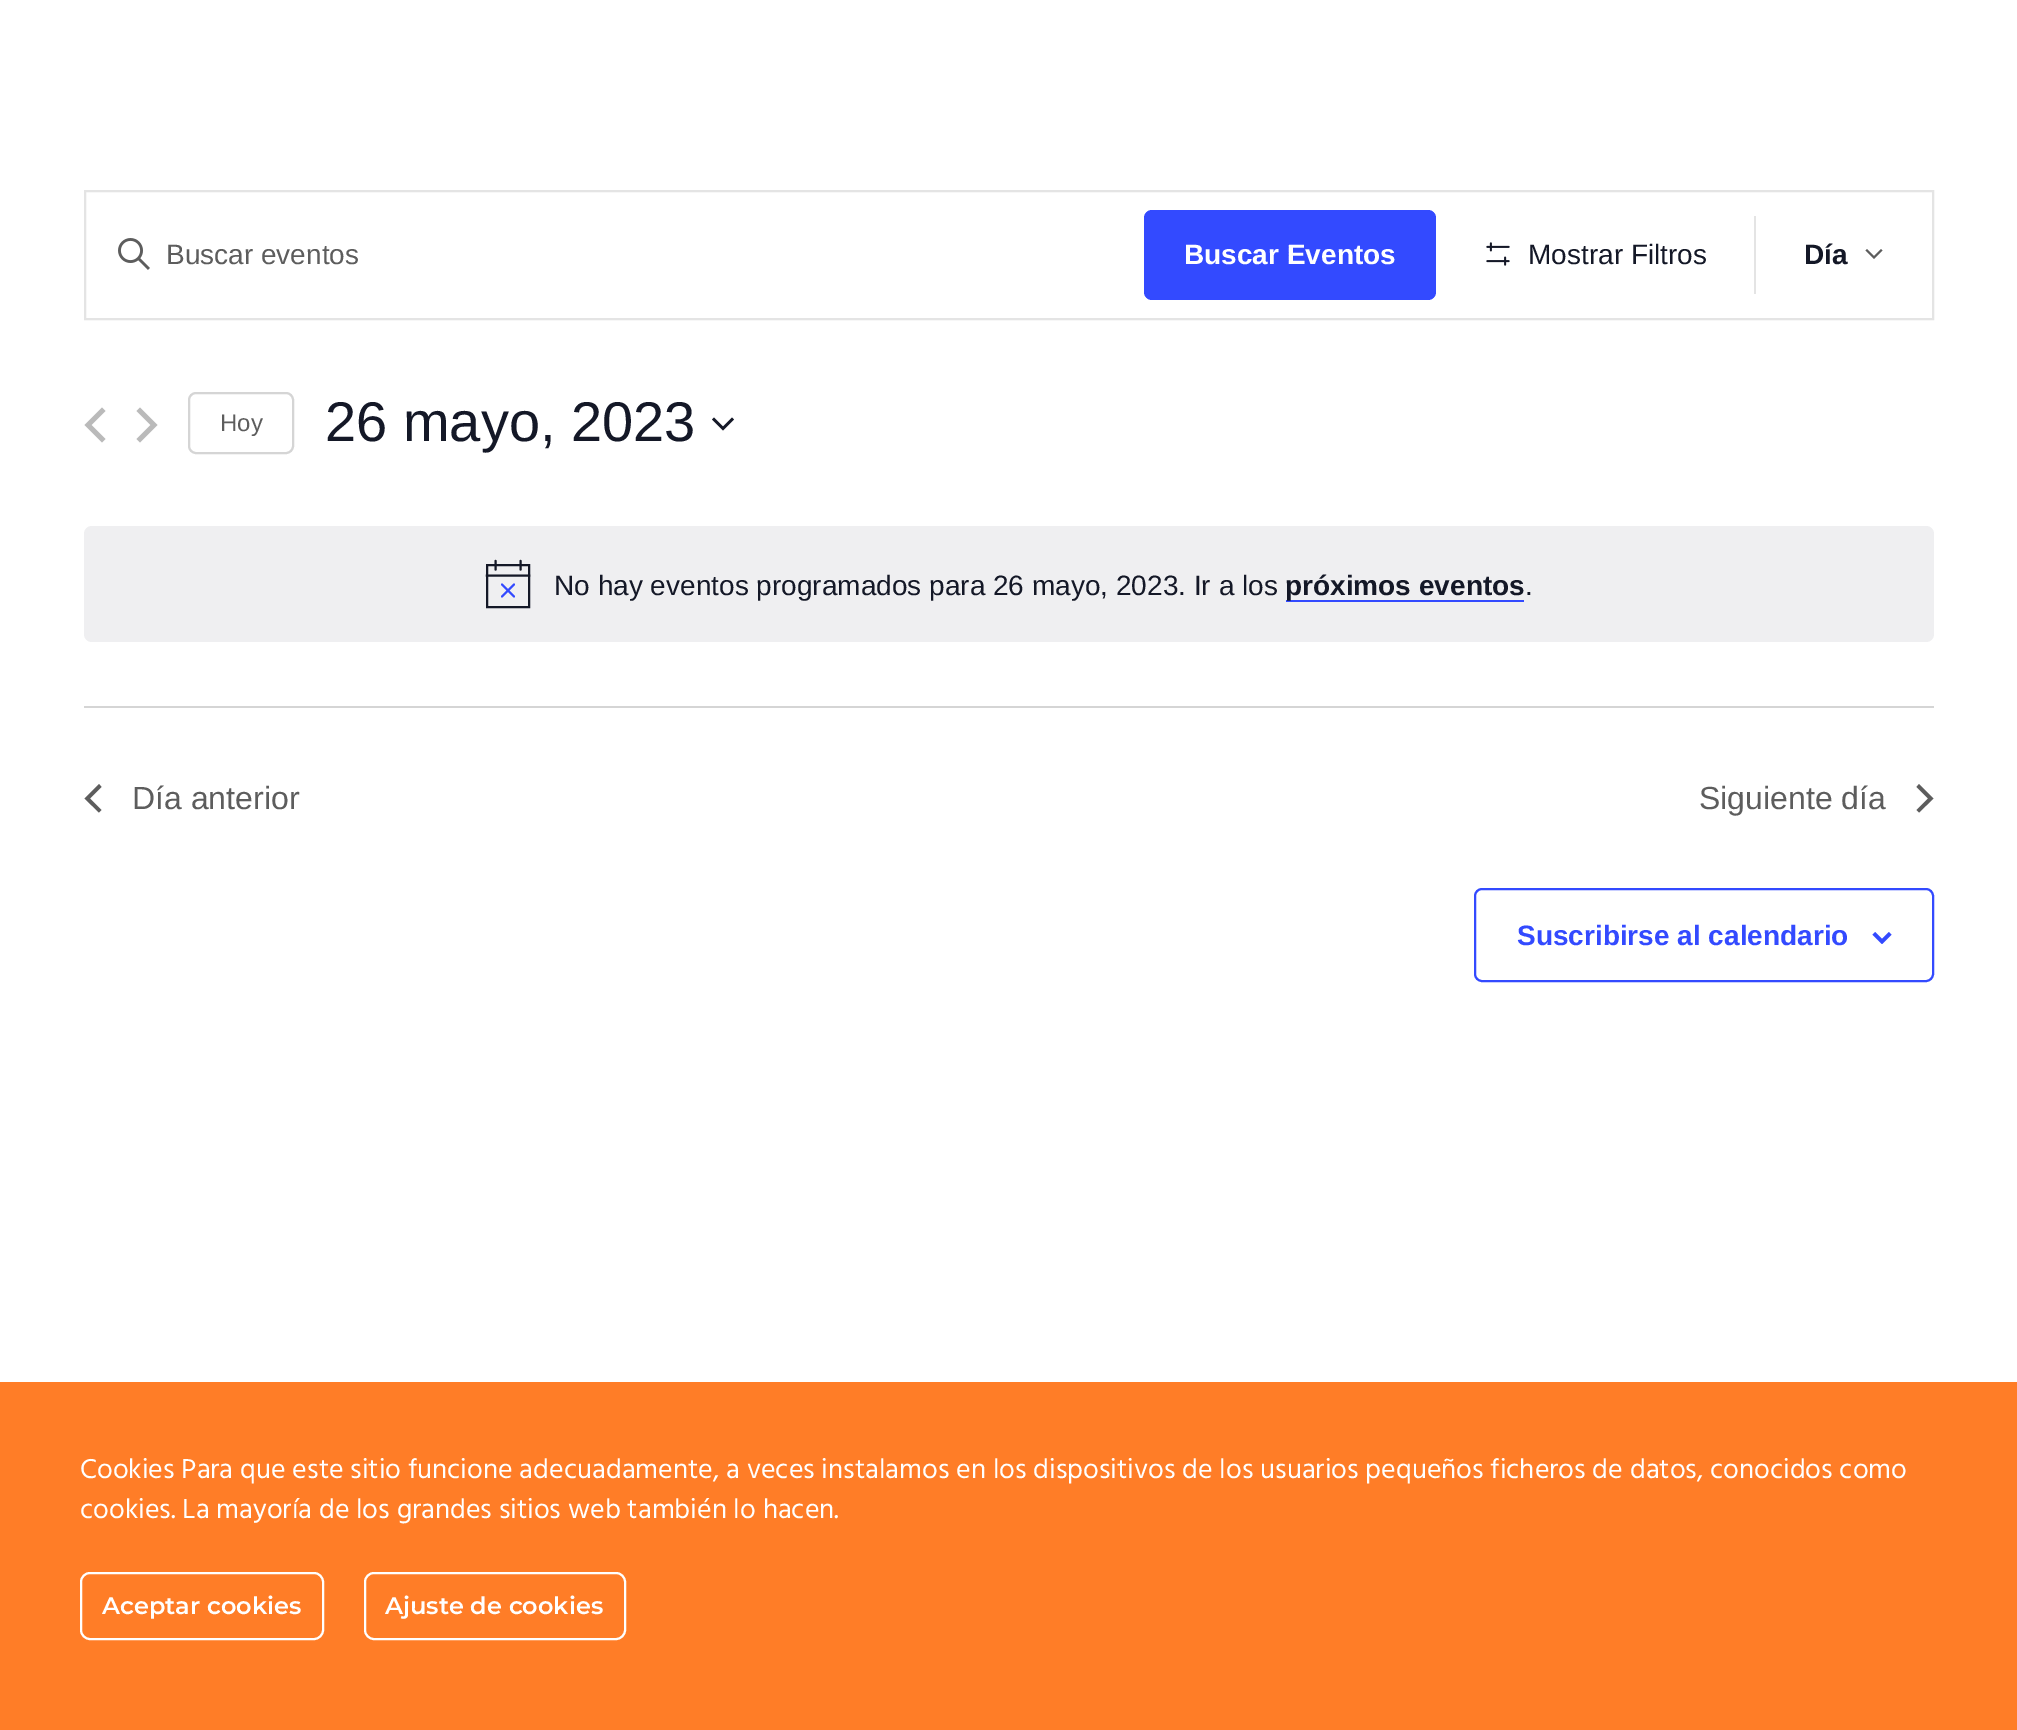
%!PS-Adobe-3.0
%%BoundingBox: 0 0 2017 1730
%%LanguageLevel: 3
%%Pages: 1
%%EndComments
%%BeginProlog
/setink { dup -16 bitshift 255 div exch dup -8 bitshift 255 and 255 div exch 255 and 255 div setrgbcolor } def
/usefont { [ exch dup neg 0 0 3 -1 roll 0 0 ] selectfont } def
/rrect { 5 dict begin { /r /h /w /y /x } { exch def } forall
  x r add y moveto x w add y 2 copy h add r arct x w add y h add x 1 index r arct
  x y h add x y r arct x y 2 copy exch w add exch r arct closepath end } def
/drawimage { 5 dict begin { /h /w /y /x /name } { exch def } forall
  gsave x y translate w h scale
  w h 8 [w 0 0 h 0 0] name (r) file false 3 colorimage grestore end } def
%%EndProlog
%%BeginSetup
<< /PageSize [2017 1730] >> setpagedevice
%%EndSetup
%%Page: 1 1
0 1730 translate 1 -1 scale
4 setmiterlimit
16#FFFFFF setink
0 0 2017 1730 rectfill
16#E4E4E4 setink
2 setlinewidth
85 191 1848 128 rectstroke
(img1.raw) 118 238 32 32 drawimage
/LiberationSans-Regular 28 usefont
16#5D5D5D setink
166 264 moveto (Buscar eventos) show
16#334AFF setink
1144 210 292 90 8 rrect fill
/LiberationSans-Bold 28 usefont
16#FFFFFF setink
1184 264 moveto (Buscar Eventos) show
16#E4E4E4 setink
1754 216 2 78 rectfill
(img2.raw) 1486 242 24 24 drawimage
/LiberationSans-Regular 28 usefont
16#141827 setink
1528 264 moveto (Mostrar Filtros) show
/LiberationSans-Bold 28 usefont
1804 264 moveto (Día) show
16#5D5D5D setink
1867 249 moveto 1874 256 lineto 1881 249 lineto 1882.5 250.5 lineto 1874 259 lineto 1865.5 250.5 lineto closepath eofill
16#BABABA setink
105.5 439 moveto 102 442.5 lineto 84.5 425 lineto 102 407.5 lineto 105.5 411 lineto 91.5 425 lineto closepath fill
136.5 411 moveto 140 407.5 lineto 157.5 425 lineto 140 442.5 lineto 136.5 439 lineto 150.5 425 lineto closepath fill
16#D5D5D5 setink
189 393 104 60 7 rrect stroke
/LiberationSans-Regular 24 usefont
16#5D5D5D setink
220 431 moveto (Hoy) show
/LiberationSans-Regular 56 usefont
16#141827 setink
325 441 moveto (26 mayo, 2023) show
714 417.5 moveto 723 426.5 lineto 732 417.5 lineto 734 419.5 lineto 723 430.5 lineto 712 419.5 lineto closepath eofill
16#EFEFF1 setink
84 526 1850 116 8 rrect fill
16#141827 setink
2.1 setlinewidth
487 565 moveto 529 565 lineto 529 607 lineto 487 607 lineto closepath stroke
16#334AFF setink
1 setlinecap
502 584.5 moveto 514 596.5 lineto 514 584.5 moveto 502 596.5 lineto stroke
16#141827 setink
495.5 561 moveto 495.5 569.5 lineto 520.5 561 moveto 520.5 569.5 lineto stroke
2 setlinecap
487 575.5 moveto 529 575.5 lineto stroke
/LiberationSans-Regular 28 usefont
554 595 moveto (No hay eventos programados para 26 mayo, 2023. Ir a los) show
16#334AFF setink
1286 600 238 2 rectfill
/LiberationSans-Bold 28 usefont
16#141827 setink
1285 595 moveto (próximos eventos) show
/LiberationSans-Regular 28 usefont
1525 595 moveto (.) show
16#D5D5D5 setink
84 706 1850 2 rectfill
16#5D5D5D setink
101.5 810 moveto 99 812.5 lineto 84.5 798.5 lineto 99 784 lineto 101.5 787 lineto 90 798.5 lineto closepath fill
/LiberationSans-Regular 32 usefont
132 809 moveto (Día anterior) show
1699 809 moveto (Siguiente día) show
1916.5 787 moveto 1919 784 lineto 1933.5 798.5 lineto 1919 812.5 lineto 1916.5 810 lineto 1928 798.5 lineto closepath fill
16#334AFF setink
2 setlinewidth
0 setlinecap
1475 889 458 92 7 rrect stroke
/LiberationSans-Bold 28 usefont
1517 945 moveto (Suscribirse al calendario) show
(img3.raw) 1872 932 20 12 drawimage
16#FF7D27 setink
0 1382 2017 348 rectfill
/Hind-Regular 28 usefont
16#FFFFFF setink
80 1478 moveto (Cookies Para que este sitio funcione adecuadamente, a veces instalamos en los dispositivos de los usuarios pequeños ficheros de datos, conocidos como) show
80 1518 moveto (cookies. La mayoría de los grandes sitios web también lo hacen.) show
81 1573 242 66 9 rrect stroke
/Montserrat-SemiBold 24 usefont
102 1614 moveto (Aceptar cookies) show
365 1573 260 66 9 rrect stroke
385 1614 moveto (Ajuste de cookies) show
showpage
%%EOF
